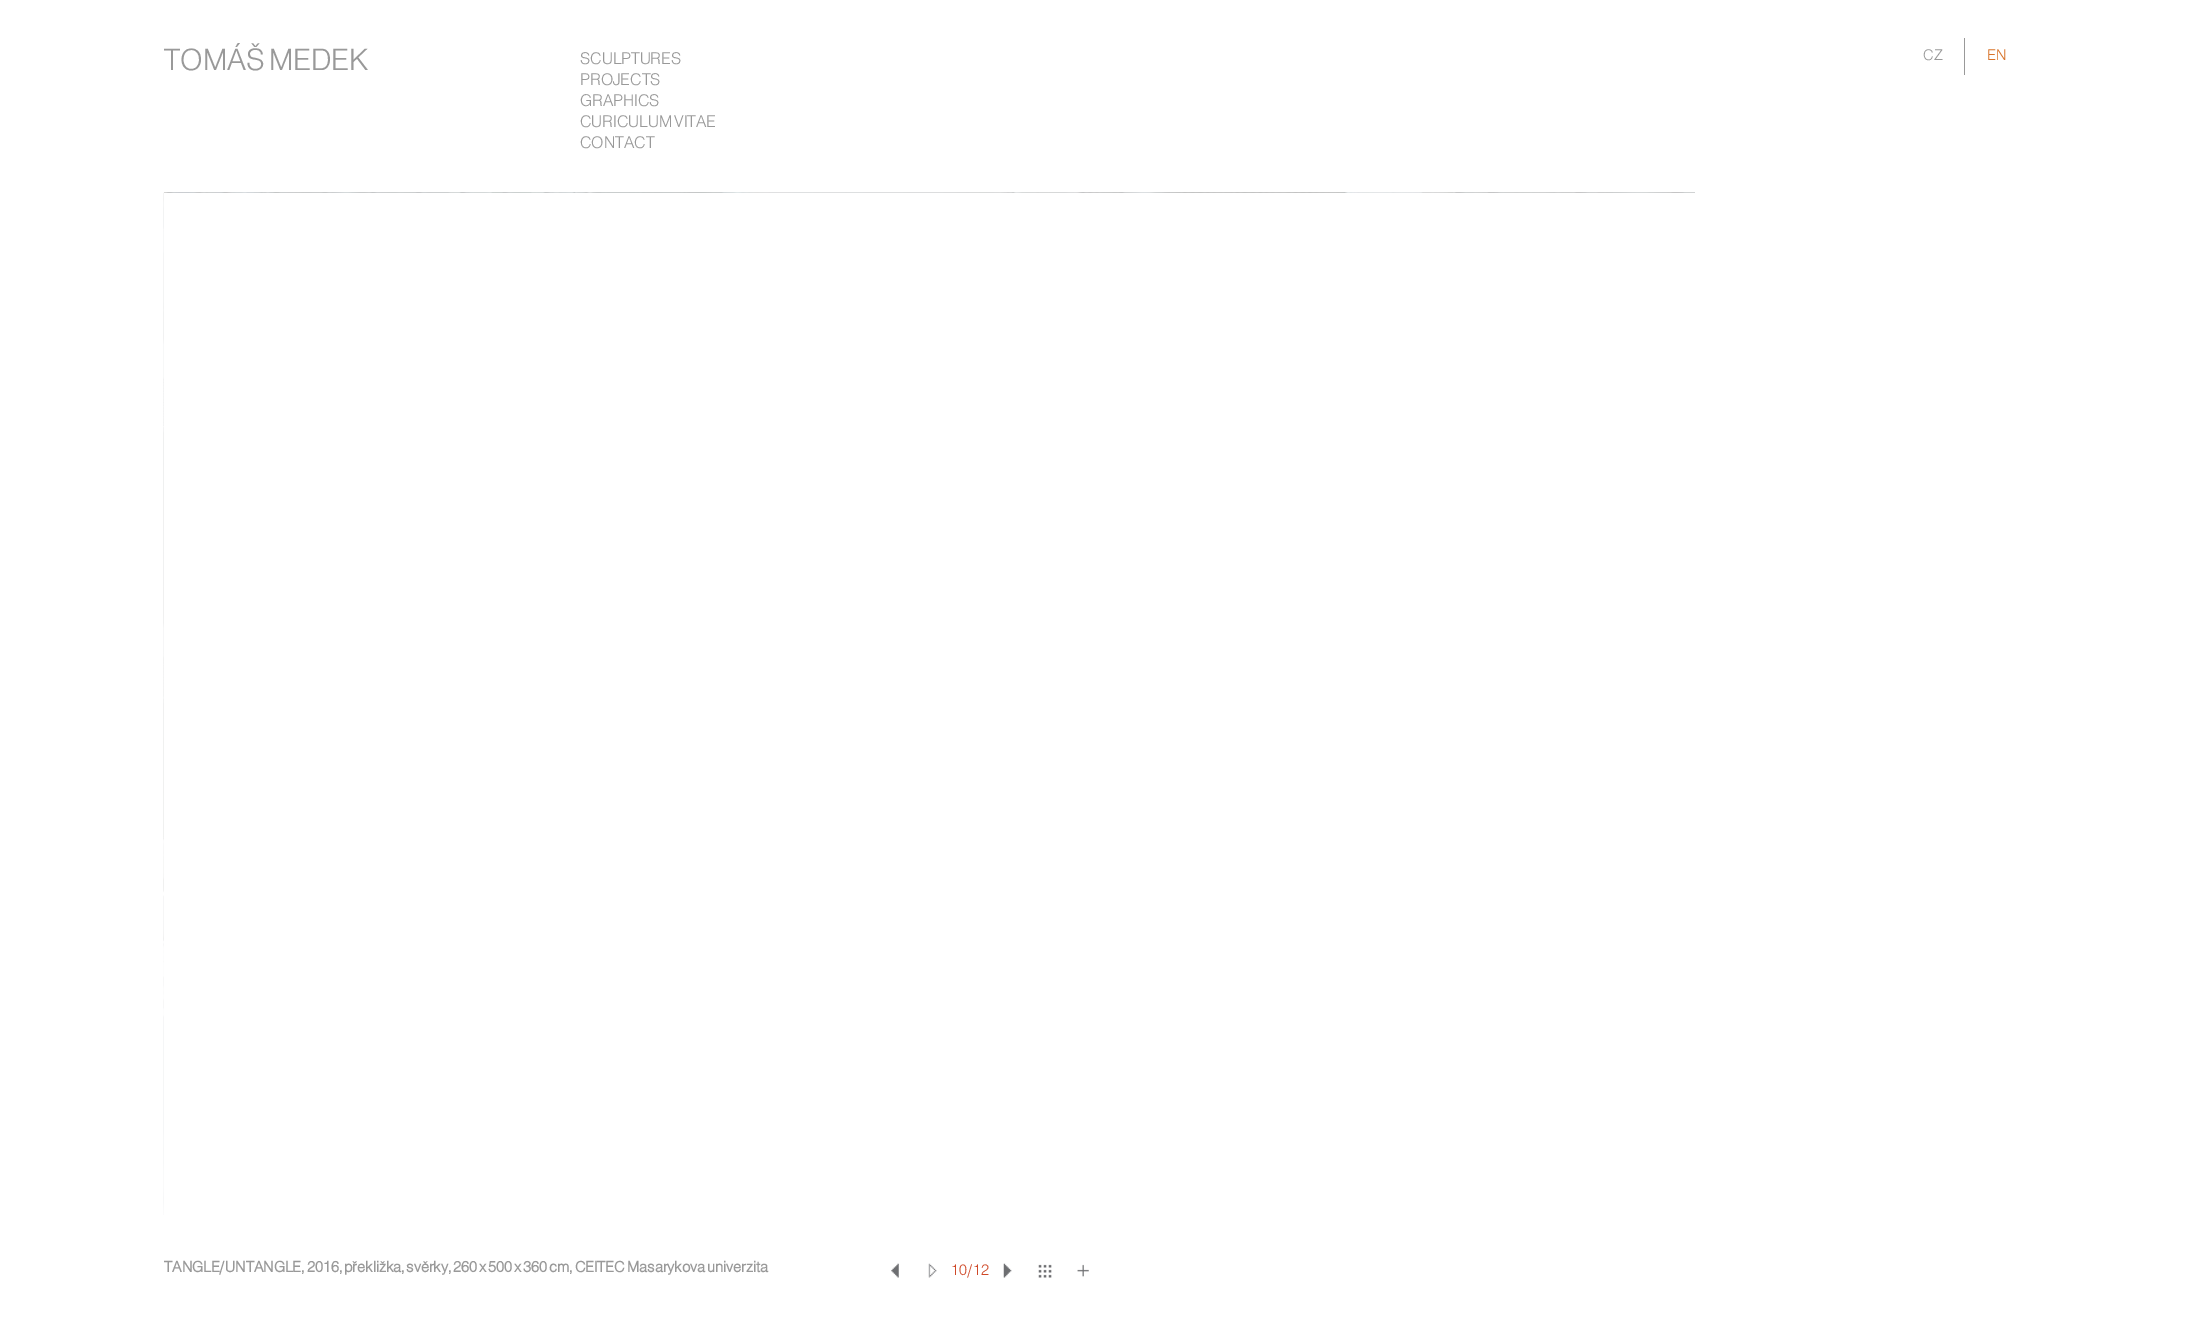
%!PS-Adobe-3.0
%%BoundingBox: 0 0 2202 1321
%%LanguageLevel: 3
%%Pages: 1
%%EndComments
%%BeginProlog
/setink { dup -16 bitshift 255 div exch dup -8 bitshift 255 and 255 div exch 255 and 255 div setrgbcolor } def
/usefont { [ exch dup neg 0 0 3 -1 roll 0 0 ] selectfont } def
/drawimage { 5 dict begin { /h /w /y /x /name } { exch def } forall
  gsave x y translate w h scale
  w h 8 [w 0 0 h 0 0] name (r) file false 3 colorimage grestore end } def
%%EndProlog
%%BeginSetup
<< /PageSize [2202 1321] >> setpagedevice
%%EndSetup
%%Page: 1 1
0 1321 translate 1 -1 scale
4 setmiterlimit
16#FFFFFF setink
0 0 2202 1321 rectfill
/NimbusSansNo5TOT-Light 32 usefont
16#999999 setink
164 70 moveto (TOMÁŠ MEDEK) show
/NimbusSansNo5TOT-Light 17.5 usefont
[
    [(SCULPTURES) 580 64]
    [(PROJECTS) 580 85]
    [(GRAPHICS) 580 106]
    [(CURICULUM VITAE) 580 127]
    [(CONTACT) 580 148]
] { aload pop moveto show } forall
1964 38 1 37 rectfill
/NimbusSansNo5TOT-Light 16 usefont
1923 60 moveto (CZ) show
16#D87329 setink
1987 60 moveto (EN) show
(img1.raw) 163 192 1532 1023 drawimage
16#FFFFFF setink
164 193 1531 1022 rectfill
/NimbusSansNo5TOT-Bold 16 usefont
16#999999 setink
164 1272 moveto (TANGLE/UNTANGLE, 2016, překližka, svěrky, 260 x 500 x 360 cm, CEITEC Masarykova univerzita) show
(img2.raw) 891 1263 8 15 drawimage
(img3.raw) 928 1263 9 15 drawimage
/NimbusSansNo5TOT-Light 16 usefont
16#CF4827 setink
951 1275 moveto (10/12) show
(img4.raw) 988 1263 24 15 drawimage
(img5.raw) 1038 1264 14 14 drawimage
(img6.raw) 1077 1264 12 13 drawimage
showpage
%%EOF
